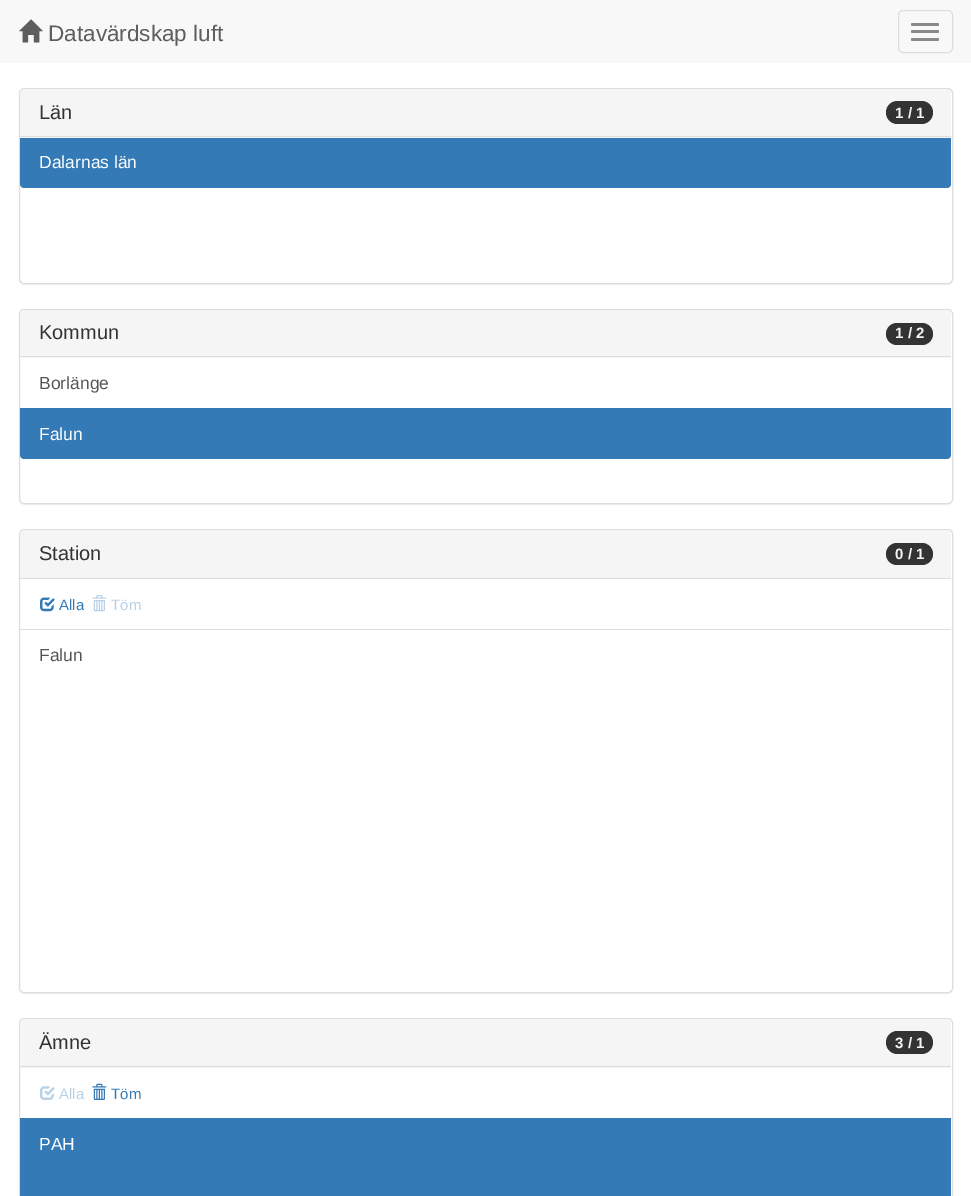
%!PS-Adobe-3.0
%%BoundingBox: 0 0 971 1196
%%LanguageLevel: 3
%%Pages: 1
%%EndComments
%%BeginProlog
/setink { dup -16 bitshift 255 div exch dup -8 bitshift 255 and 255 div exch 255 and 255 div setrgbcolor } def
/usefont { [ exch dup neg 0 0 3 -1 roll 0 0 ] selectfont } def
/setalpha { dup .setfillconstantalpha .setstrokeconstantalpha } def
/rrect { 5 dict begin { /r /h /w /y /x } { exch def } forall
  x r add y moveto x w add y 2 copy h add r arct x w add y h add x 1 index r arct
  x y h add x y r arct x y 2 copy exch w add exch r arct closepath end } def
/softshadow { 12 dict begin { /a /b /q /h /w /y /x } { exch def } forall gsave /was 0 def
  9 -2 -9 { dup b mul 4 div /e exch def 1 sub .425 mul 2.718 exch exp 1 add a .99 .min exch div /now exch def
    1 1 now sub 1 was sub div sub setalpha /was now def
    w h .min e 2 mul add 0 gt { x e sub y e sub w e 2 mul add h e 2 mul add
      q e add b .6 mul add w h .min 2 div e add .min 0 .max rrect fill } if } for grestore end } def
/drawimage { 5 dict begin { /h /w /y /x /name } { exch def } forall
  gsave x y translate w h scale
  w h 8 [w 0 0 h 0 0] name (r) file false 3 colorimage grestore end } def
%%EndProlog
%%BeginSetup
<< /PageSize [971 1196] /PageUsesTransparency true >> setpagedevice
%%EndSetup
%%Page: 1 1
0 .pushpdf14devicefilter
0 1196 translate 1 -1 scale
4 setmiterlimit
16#FFFFFF setink
0 0 971 1196 rectfill
16#F8F8F8 setink
0 0 971 63 rectfill
(img1.raw) 19 19 24 24 drawimage
/LiberationSans-Regular 22.5 usefont
16#5E5E5E setink
48 41 moveto (Datavärdskap luft) show
16#DDDDDD setink
898.5 10.5 54 42 4.5 rrect stroke
16#888888 setink
911 23 28 3 1.5 rrect fill
911 30 28 3 1.5 rrect fill
911 38 28 3 1.5 rrect fill
16#000000 setink
19 89 934 196 5 0.5 0.05 softshadow
16#FFFFFF setink
19.5 88.5 933 195 4.5 rrect gsave fill grestore
16#DDDDDD setink
stroke
16#F5F5F5 setink
24 89 moveto 947 89 lineto 949 89 951 91 951 93 curveto 951 138 lineto 20 138 lineto 20 93 lineto 20 91 22 89 24 89 curveto closepath fill
16#DDDDDD setink
20 136 931 1 rectfill
/LiberationSans-Regular 20 usefont
16#333333 setink
39 119 moveto (Län) show
886 101 47 23 11.5 rrect fill
/LiberationSans-Bold 15 usefont
16#F5F5F5 setink
895 118 moveto (1 / 1) show
16#337AB7 setink
20 138 moveto 951 138 lineto 951 184 lineto 951 186 949 188 947 188 curveto 24 188 lineto 22 188 20 186 20 184 curveto closepath fill
/LiberationSans-Regular 17.5 usefont
16#FFFFFF setink
39 168 moveto (Dalarnas län) show
16#000000 setink
19 310 934 195 5 0.5 0.05 softshadow
16#FFFFFF setink
19.5 309.5 933 194 4.5 rrect gsave fill grestore
16#DDDDDD setink
stroke
16#F5F5F5 setink
24 310 moveto 947 310 lineto 949 310 951 312 951 314 curveto 951 358 lineto 20 358 lineto 20 314 lineto 20 312 22 310 24 310 curveto closepath fill
16#DDDDDD setink
20 356 931 1 rectfill
/LiberationSans-Regular 20 usefont
16#333333 setink
39 339 moveto (Kommun) show
886 323 47 22 11 rrect fill
/LiberationSans-Bold 15 usefont
16#F5F5F5 setink
895 338 moveto (1 / 2) show
/LiberationSans-Regular 17.5 usefont
16#555555 setink
39 389 moveto (Borlänge) show
16#337AB7 setink
20 408 moveto 951 408 lineto 951 455 lineto 951 457 949 459 947 459 curveto 24 459 lineto 22 459 20 457 20 455 curveto closepath fill
16#FFFFFF setink
39 440 moveto (Falun) show
16#000000 setink
19 530 934 464 5 0.5 0.05 softshadow
16#FFFFFF setink
19.5 529.5 933 463 4.5 rrect gsave fill grestore
16#DDDDDD setink
stroke
16#F5F5F5 setink
24 530 moveto 947 530 lineto 949 530 951 532 951 534 curveto 951 579 lineto 20 579 lineto 20 534 lineto 20 532 22 530 24 530 curveto closepath fill
16#DDDDDD setink
20 578 931 1 rectfill
/LiberationSans-Regular 20 usefont
16#333333 setink
39 560 moveto (Station) show
886 543 47 22 11 rrect fill
/LiberationSans-Bold 15 usefont
16#F5F5F5 setink
895 559 moveto (0 / 1) show
(img2.raw) 40 597 15 15 drawimage
/LiberationSans-Regular 15 usefont
16#337AB7 setink
59 610 moveto (Alla) show
(img3.raw) 92 595 15 17 drawimage
16#B8D0E6 setink
111 610 moveto (Töm) show
16#DDDDDD setink
20 629 931 1 rectfill
/LiberationSans-Regular 17.5 usefont
16#555555 setink
39 661 moveto (Falun) show
16#DDDDDD setink
19.5 1018.5 933 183 4.5 rrect stroke
16#F5F5F5 setink
24 1019 moveto 947 1019 lineto 949 1019 951 1021 951 1023 curveto 951 1068 lineto 20 1068 lineto 20 1023 lineto 20 1021 22 1019 24 1019 curveto closepath fill
16#DDDDDD setink
20 1066 931 1 rectfill
/LiberationSans-Regular 20 usefont
16#333333 setink
39 1049 moveto (Ämne) show
886 1031 47 23 11.5 rrect fill
/LiberationSans-Bold 15 usefont
16#F5F5F5 setink
895 1048 moveto (3 / 1) show
(img4.raw) 40 1086 15 14 drawimage
/LiberationSans-Regular 15 usefont
16#B8D0E6 setink
59 1099 moveto (Alla) show
(img5.raw) 92 1083 15 17 drawimage
16#337AB7 setink
111 1099 moveto (Töm) show
20 1118 931 78 rectfill
/LiberationSans-Regular 17.5 usefont
16#FFFFFF setink
39 1150 moveto (PAH) show
.poppdf14devicefilter showpage
%%EOF
